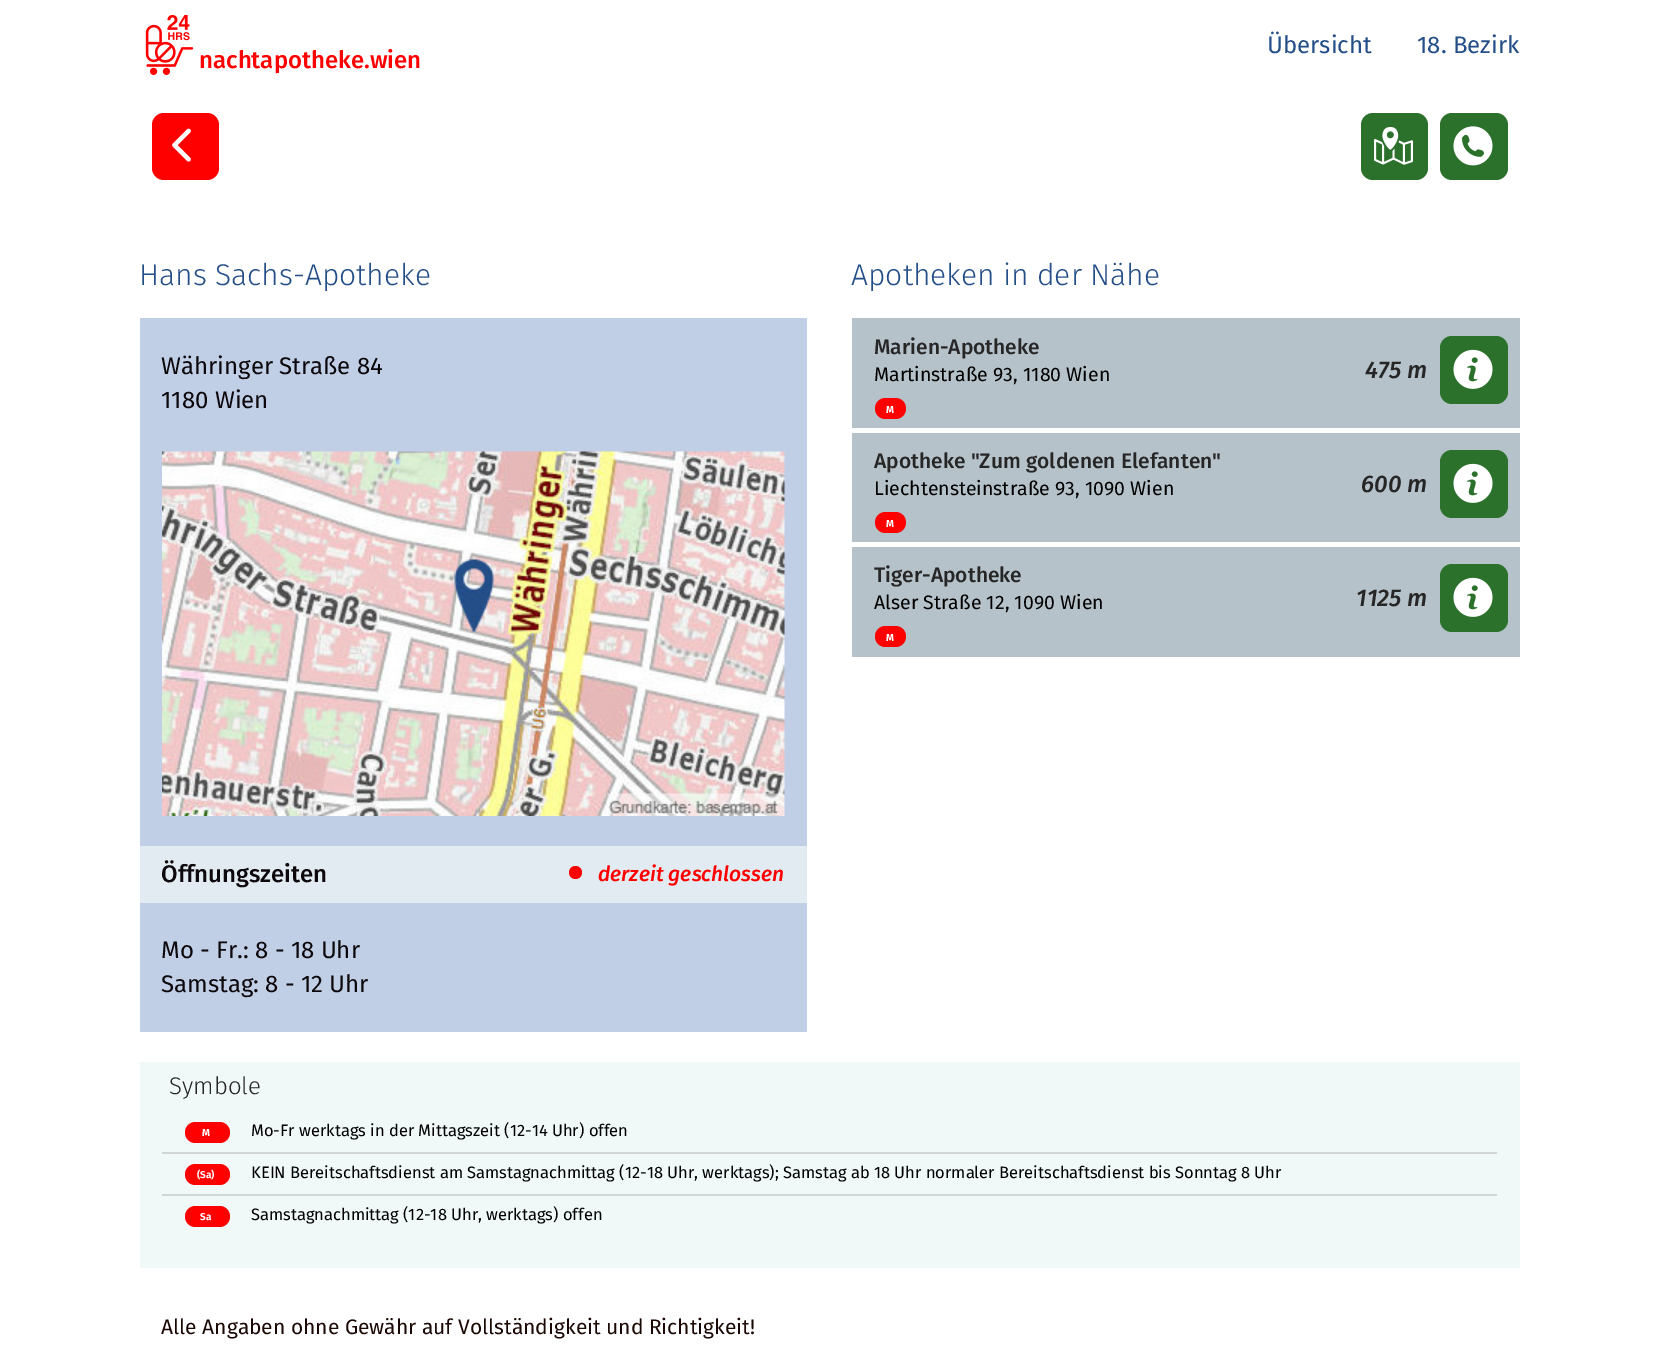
%!PS-Adobe-3.0
%%BoundingBox: 0 0 1657 1345
%%LanguageLevel: 3
%%Pages: 1
%%EndComments
%%BeginProlog
/setink { dup -16 bitshift 255 div exch dup -8 bitshift 255 and 255 div exch 255 and 255 div setrgbcolor } def
/usefont { [ exch dup neg 0 0 3 -1 roll 0 0 ] selectfont } def
/disc { newpath 0 360 arc closepath } def
/rrect { 5 dict begin { /r /h /w /y /x } { exch def } forall
  x r add y moveto x w add y 2 copy h add r arct x w add y h add x 1 index r arct
  x y h add x y r arct x y 2 copy exch w add exch r arct closepath end } def
/drawimage { 5 dict begin { /h /w /y /x /name } { exch def } forall
  gsave x y translate w h scale
  w h 8 [w 0 0 h 0 0] name (r) file false 3 colorimage grestore end } def
%%EndProlog
%%BeginSetup
<< /PageSize [1657 1345] >> setpagedevice
%%EndSetup
%%Page: 1 1
0 1345 translate 1 -1 scale
4 setmiterlimit
16#FFFFFF setink
0 0 1657 1345 rectfill
/FiraSans-Regular 24 usefont
16#244E88 setink
1267 53 moveto (Übersicht) show
1417 53 moveto (18. Bezirk) show
(img1.raw) 145 15 49 60 drawimage
/FiraSans-Medium 24 usefont
16#FF0000 setink
199 68 moveto (nachtapotheke.wien) show
152 113 67 67 12 rrect fill
(img2.raw) 172 128 19 34 drawimage
16#2B712C setink
1361 113 67 67 12 rrect fill
(img3.raw) 1374 127 39 38 drawimage
1440 113 68 67 12 rrect fill
(img4.raw) 1453 126 40 40 drawimage
/FiraSans-Light 30 usefont
16#244E88 setink
139 285 moveto (Hans Sachs-Apotheke) show
16#C0CEE6 setink
140 318 667 528 rectfill
/FiraSans-Regular 24 usefont
16#0D080B setink
161 374 moveto (Währinger Straße 84) show
161 408 moveto (1180 Wien) show
(img5.raw) 162 451 623 365 drawimage
16#E1EBF1 setink
140 846 667 57 rectfill
/FiraSans-Medium 24 usefont
16#0D080B setink
161 882 moveto (Öffnungszeiten) show
16#FF0000 setink
575.5 872.5 6.5 disc fill
/FiraSans-MediumItalic 21 usefont
598 881 moveto (derzeit geschlossen) show
16#C0CEE6 setink
140 903 667 129 rectfill
/FiraSans-Regular 24 usefont
16#0D080B setink
161 958 moveto (Mo - Fr.: 8 - 18 Uhr) show
161 992 moveto (Samstag: 8 - 12 Uhr) show
/FiraSans-Light 30 usefont
16#244E88 setink
851 285 moveto (Apotheken in der Nähe) show
16#B5C2C9 setink
852 318 668 110 rectfill
/FiraSans-Medium 21 usefont
16#262626 setink
874 354 moveto (Marien-Apotheke) show
/FiraSans-Regular 19.5 usefont
16#000000 setink
874 381 moveto (Martinstraße 93, 1180 Wien) show
16#FF0000 setink
875 398 31 21 10.5 rrect fill
/FiraSans-Bold 10 usefont
16#FFFFFF setink
886 413 moveto (M) show
/FiraSans-MediumItalic 24 usefont
16#262626 setink
1365 378 moveto (475 m) show
16#2B712C setink
1440 336 68 68 12 rrect fill
(img6.raw) 1453 349 40 40 drawimage
16#B5C2C9 setink
852 433 668 109 rectfill
/FiraSans-Medium 21 usefont
16#262626 setink
874 468 moveto (Apotheke "Zum goldenen Elefanten") show
/FiraSans-Regular 19.5 usefont
16#000000 setink
874 495 moveto (Liechtensteinstraße 93, 1090 Wien) show
16#FF0000 setink
875 512 31 21 10.5 rrect fill
/FiraSans-Bold 10 usefont
16#FFFFFF setink
886 527 moveto (M) show
/FiraSans-MediumItalic 24 usefont
16#262626 setink
1361 492 moveto (600 m) show
16#2B712C setink
1440 450 68 68 12 rrect fill
(img6.raw) 1453 463 40 40 drawimage
16#B5C2C9 setink
852 547 668 110 rectfill
/FiraSans-Medium 21 usefont
16#262626 setink
874 582 moveto (Tiger-Apotheke) show
/FiraSans-Regular 19.5 usefont
16#000000 setink
874 609 moveto (Alser Straße 12, 1090 Wien) show
16#FF0000 setink
875 626 31 21 10.5 rrect fill
/FiraSans-Bold 10 usefont
16#FFFFFF setink
886 641 moveto (M) show
/FiraSans-MediumItalic 24 usefont
16#262626 setink
1356 606 moveto (1125 m) show
16#2B712C setink
1440 564 68 68 12 rrect fill
(img6.raw) 1453 577 40 40 drawimage
16#F0F8F8 setink
140 1062 1380 206 rectfill
/FiraSans-Light 24 usefont
16#262626 setink
169 1094 moveto (Symbole) show
16#FF0000 setink
185 1122 45 21 10.5 rrect fill
/FiraSans-Bold 10 usefont
16#FFFFFF setink
202 1136 moveto (M) show
/FiraSans-Regular 16.5 usefont
16#000000 setink
251 1136 moveto (Mo-Fr werktags in der Mittagszeit \(12-14 Uhr\) offen) show
16#D1D5D6 setink
162 1152 1335 2 rectfill
16#FF0000 setink
185 1164 45 21 10.5 rrect fill
/FiraSans-Bold 10 usefont
16#FFFFFF setink
197 1178 moveto (\(Sa\)) show
/FiraSans-Regular 16.5 usefont
16#000000 setink
251 1178 moveto (KEIN Bereitschaftsdienst am Samstagnachmittag \(12-18 Uhr, werktags\); Samstag ab 18 Uhr normaler Bereitschaftsdienst bis Sonntag 8 Uhr) show
16#D1D5D6 setink
162 1194 1335 2 rectfill
16#FF0000 setink
185 1206 45 21 10.5 rrect fill
/FiraSans-Bold 10 usefont
16#FFFFFF setink
200 1220 moveto (Sa) show
/FiraSans-Regular 16.5 usefont
16#000000 setink
251 1220 moveto (Samstagnachmittag \(12-18 Uhr, werktags\) offen) show
/FiraSans-Regular 21 usefont
16#1B0804 setink
161 1334 moveto (Alle Angaben ohne Gewähr auf Vollständigkeit und Richtigkeit!) show
showpage
%%EOF
